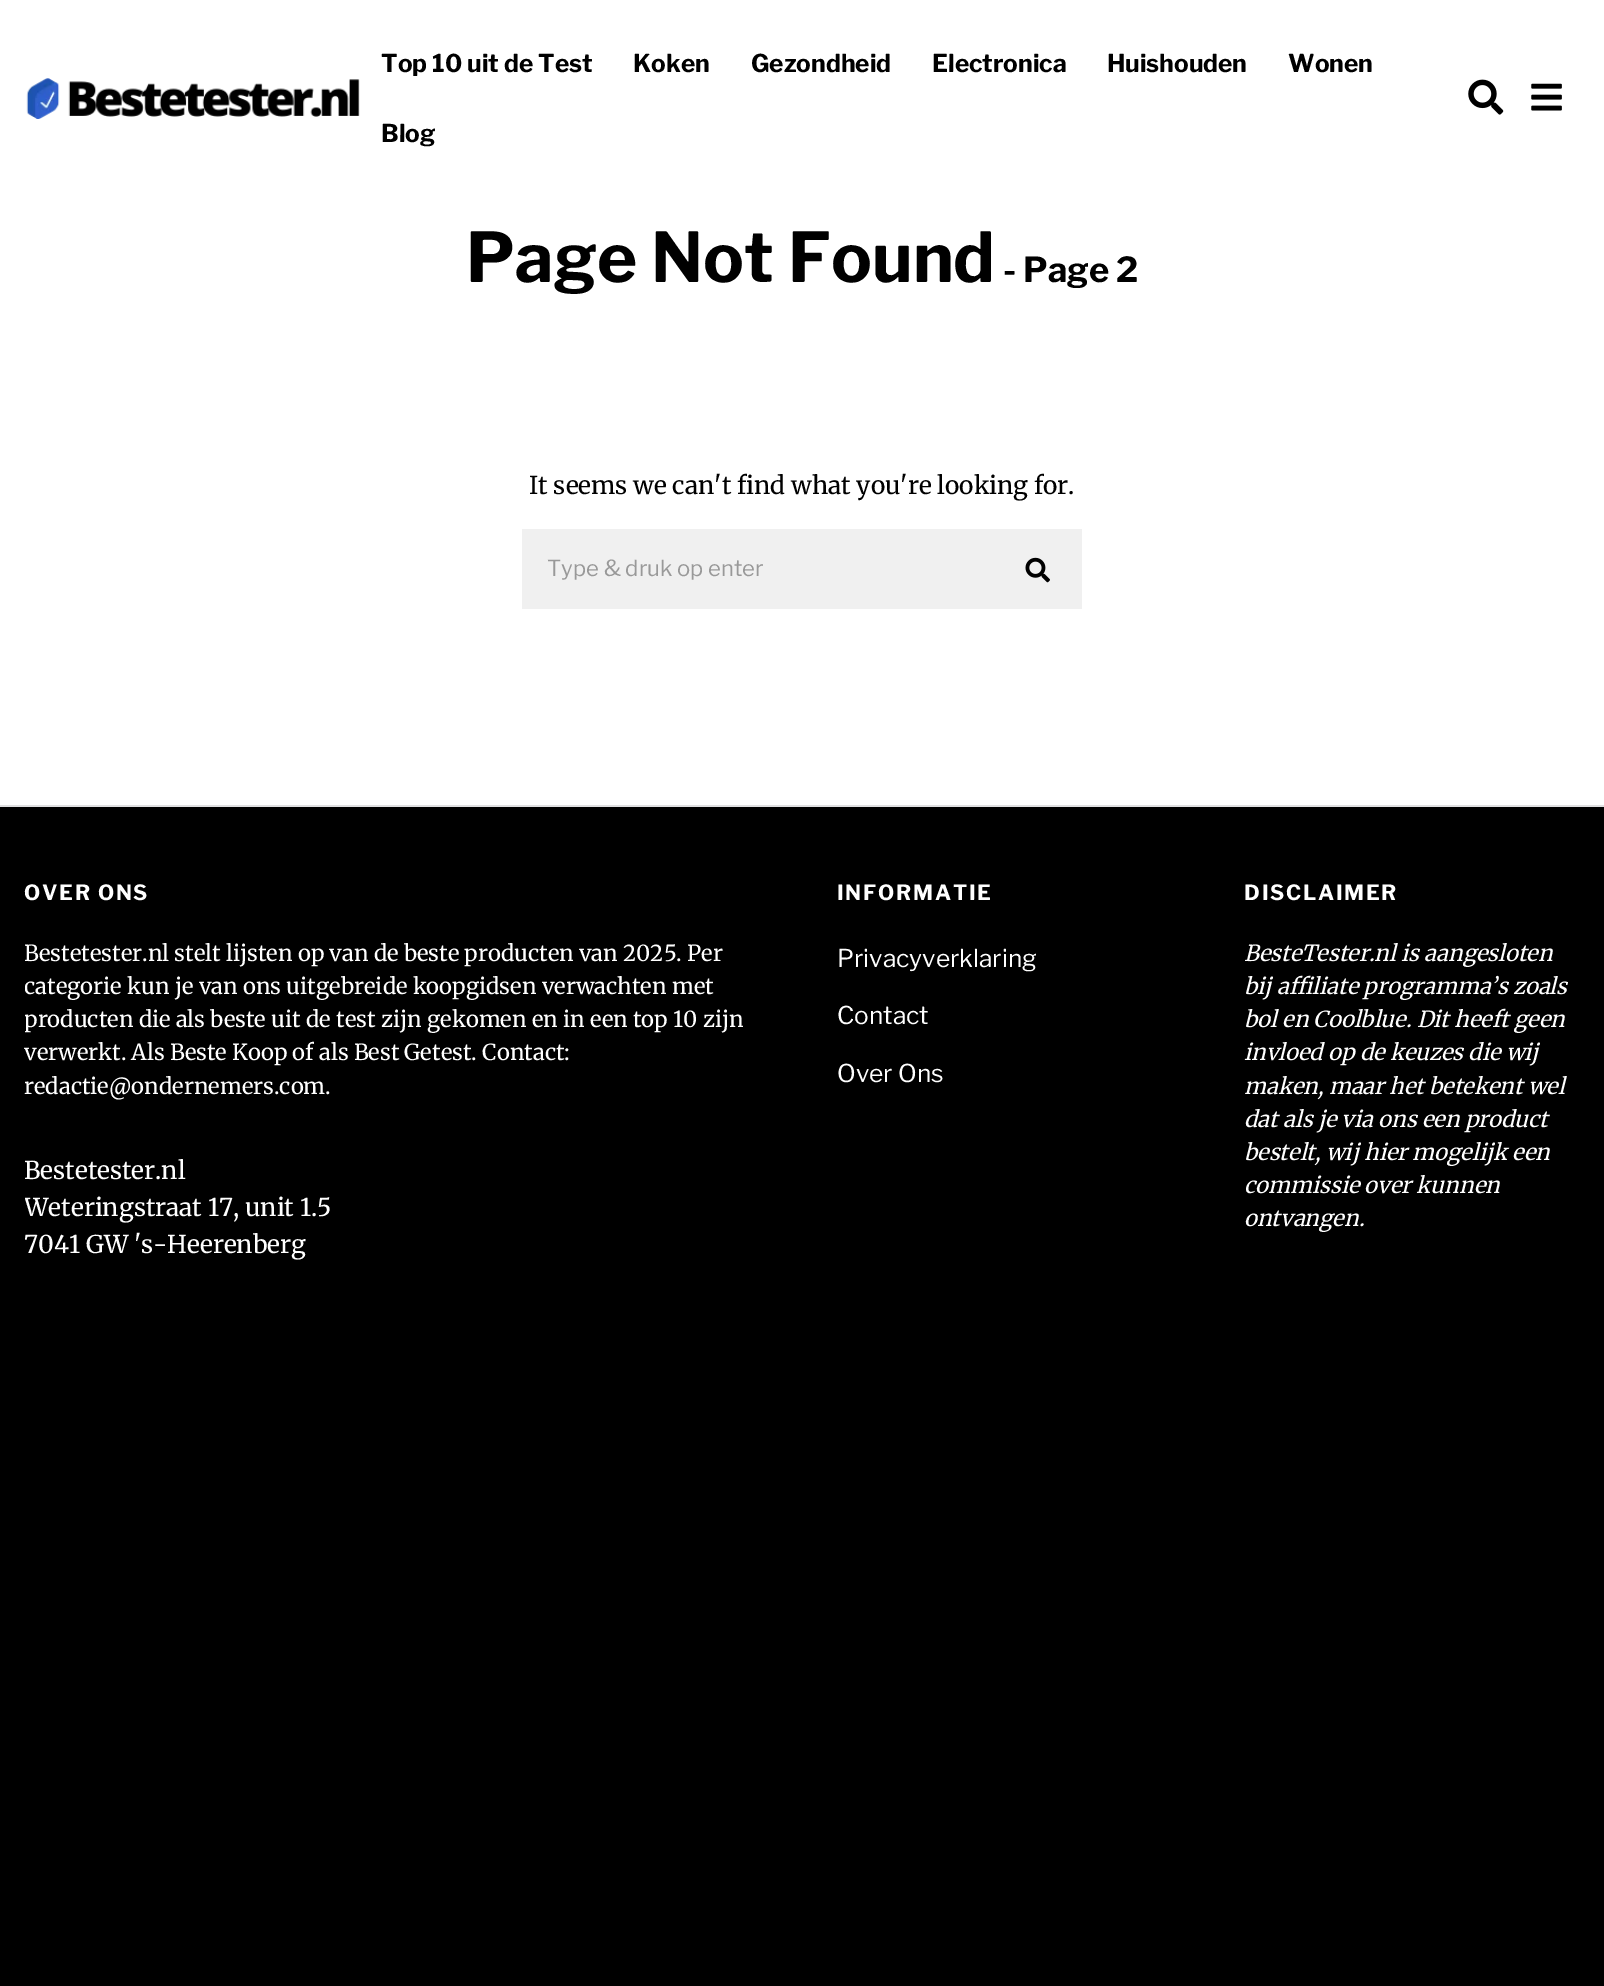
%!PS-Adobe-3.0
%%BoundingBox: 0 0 1604 1986
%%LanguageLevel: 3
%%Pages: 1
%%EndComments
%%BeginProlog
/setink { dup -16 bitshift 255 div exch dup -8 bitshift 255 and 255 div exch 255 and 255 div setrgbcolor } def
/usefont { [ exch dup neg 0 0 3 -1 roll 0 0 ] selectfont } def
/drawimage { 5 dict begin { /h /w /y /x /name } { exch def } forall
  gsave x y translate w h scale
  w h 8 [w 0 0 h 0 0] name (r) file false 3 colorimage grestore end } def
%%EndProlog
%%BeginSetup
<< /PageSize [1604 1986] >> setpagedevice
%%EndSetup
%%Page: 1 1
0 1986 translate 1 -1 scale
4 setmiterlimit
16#FFFFFF setink
0 0 1604 1986 rectfill
(img1.raw) 26 78 334 41 drawimage
/LibreFranklin-Bold 24.5 usefont
16#000000 setink
[
    [(Top 10 uit de Test) 381 72]
    [(Koken) 633 72]
    [(Gezondheid) 751 72]
    [(Electronica) 932 72]
    [(Huishouden) 1107 72]
    [(Wonen) 1288 72]
    [(Blog) 381 142]
] { aload pop moveto show } forall
(img2.raw) 1468 79 36 36 drawimage
(img3.raw) 1531 83 31 28 drawimage
/LibreFranklin-Bold 68.5 usefont
466 282 moveto (Page Not Found) show
/LibreFranklin-Bold 34.5 usefont
1003 282 moveto (- Page 2) show
/Merriweather-Light 24.5 usefont
529 494 moveto (It seems we can't find what you're looking for.) show
16#F0F0F0 setink
522 529 560 80 rectfill
/LibreFranklin-Regular 22.05 usefont
16#999999 setink
547 576 moveto (Type & druk op enter) show
(img4.raw) 1025 557 25 26 drawimage
16#000000 setink
0 807 1604 1179 rectfill
16#E0E0E1 setink
0 805 1604 2 rectfill
/LibreFranklin-Bold 21 usefont
16#FFFFFF setink
24 900 moveto 1.75 0 (OVER ONS) ashow
/Merriweather-Light 22.05 usefont
24 961 moveto (Bestetester.nl stelt lijsten op van de beste producten van 2025. Per) show
gsave
25 880 1555 909 rectclip
24 994 moveto (categorie kun je van ons uitgebreide koopgidsen verwachten met) show
24 1027 moveto (producten die als beste uit de test zijn gekomen en in een top 10 zijn) show
grestore
24 1060 moveto (verwerkt. Als Beste Koop of als Best Getest. Contact:) show
24 1094 moveto (redactie@ondernemers.com.) show
/Merriweather-Light 24.5 usefont
24 1179 moveto (Bestetester.nl) show
gsave
25 880 1555 909 rectclip
24 1216 moveto (Weteringstraat 17, unit 1.5) show
grestore
24 1253 moveto (7041 GW 's-Heerenberg) show
/LibreFranklin-Bold 21 usefont
837 900 moveto 1.75 0 (INFORMATIE) ashow
/LibreFranklin-Regular 24.5 usefont
[
    [(Privacyverklaring) 837 967]
    [(Contact) 837 1024]
    [(Over Ons) 837 1082]
] { aload pop moveto show } forall
/LibreFranklin-Bold 21 usefont
1244 900 moveto 1.75 0 (DISCLAIMER) ashow
/Merriweather-LightItalic 22.05 usefont
[
    [(BesteTester.nl is aangesloten) 1244 961]
    [(bij affiliate programma’s zoals) 1244 994]
    [(bol en Coolblue. Dit heeft geen) 1244 1027]
    [(invloed op de keuzes die wij) 1244 1060]
    [(maken, maar het betekent wel) 1244 1094]
    [(dat als je via ons een product) 1244 1127]
    [(bestelt, wij hier mogelijk een) 1244 1160]
    [(commissie over kunnen) 1244 1193]
    [(ontvangen.) 1244 1226]
] { aload pop moveto show } forall
showpage
%%EOF
